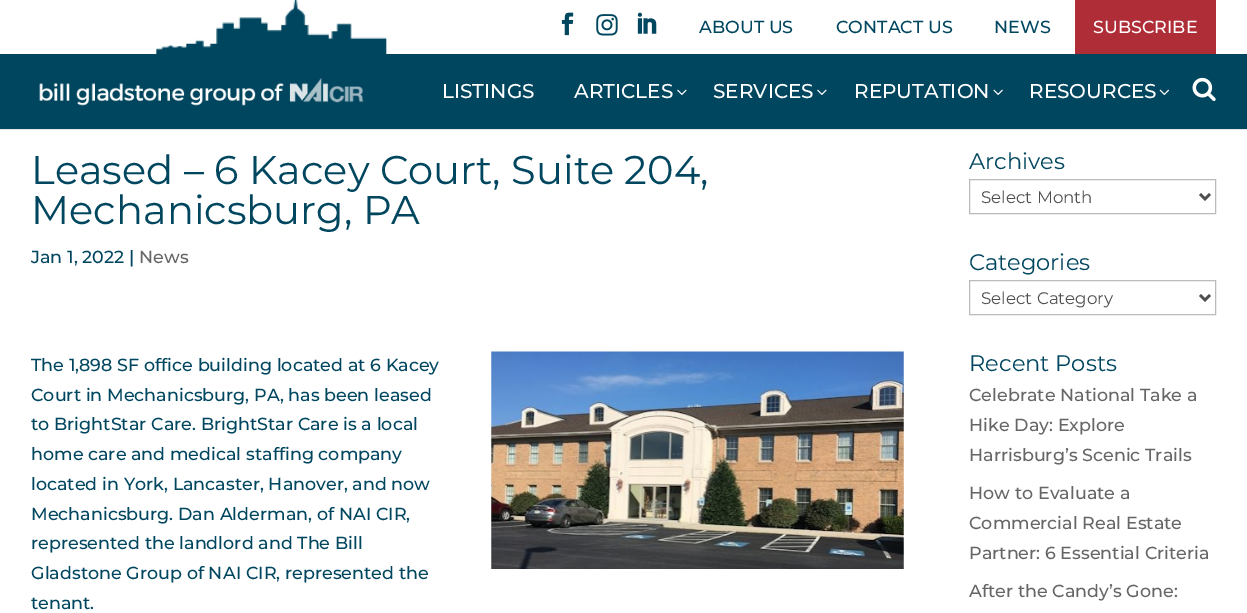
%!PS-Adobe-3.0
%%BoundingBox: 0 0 1247 613
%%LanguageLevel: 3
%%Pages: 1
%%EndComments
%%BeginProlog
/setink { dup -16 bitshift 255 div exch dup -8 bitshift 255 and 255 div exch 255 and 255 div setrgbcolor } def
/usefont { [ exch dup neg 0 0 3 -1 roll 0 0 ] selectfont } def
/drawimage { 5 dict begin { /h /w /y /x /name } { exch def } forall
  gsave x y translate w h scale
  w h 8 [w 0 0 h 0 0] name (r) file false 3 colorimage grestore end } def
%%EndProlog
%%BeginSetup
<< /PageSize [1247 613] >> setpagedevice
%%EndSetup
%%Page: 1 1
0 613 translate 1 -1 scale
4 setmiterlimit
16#FFFFFF setink
0 0 1247 613 rectfill
16#E6E6E6 setink
0 129 moveto 0 130 lineto 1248 130 lineto 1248 1 lineto 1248 129 lineto closepath fill
16#00465F setink
0 54 1247 75 rectfill
(img1.raw) 156 0 231 54 drawimage
(img2.raw) 561 12 13 24 drawimage
(img3.raw) 596 14 22 22 drawimage
(img4.raw) 637 12 20 22 drawimage
/Montserrat-Medium 17.5 usefont
[
    [(ABOUT US) 699 33]
    [(CONTACT US) 836 33]
    [(NEWS) 994 33]
] { aload pop moveto show } forall
16#AF2D37 setink
1075 0 141 54 rectfill
16#FFFFFF setink
1093 33 moveto (SUBSCRIBE) show
(img5.raw) 39 78 325 28 drawimage
/Montserrat-Medium 20 usefont
442 98 moveto (LISTINGS) show
574 98 moveto (ARTICLES) show
(img6.raw) 677 89 10 6 drawimage
713 98 moveto (SERVICES) show
(img6.raw) 817 89 10 6 drawimage
854 98 moveto (REPUTATION) show
(img7.raw) 993 89 10 6 drawimage
1029 98 moveto (RESOURCES) show
(img8.raw) 1159 89 10 6 drawimage
(img9.raw) 1192 77 24 24 drawimage
/Montserrat-Regular 40 usefont
16#00465F setink
31 184 moveto (Leased – 6 Kacey Court, Suite 204,) show
31 224 moveto (Mechanicsburg, PA) show
/Montserrat-Medium 17.5 usefont
31 263 moveto (Jan 1, 2022 |) show
16#666666 setink
139 263 moveto (News) show
16#00465F setink
[
    [(The 1,898 SF office building located at 6 Kacey) 31 371]
    [(Court in Mechanicsburg, PA, has been leased) 31 401]
    [(to BrightStar Care. BrightStar Care is a local) 31 430]
    [(home care and medical staffing company) 31 460]
    [(located in York, Lancaster, Hanover, and now) 31 490]
    [(Mechanicsburg. Dan Alderman, of NAI CIR,) 31 520]
    [(represented the landlord and The Bill) 31 549]
    [(Gladstone Group of NAI CIR, represented the) 31 579]
    [(tenant.) 31 609]
] { aload pop moveto show } forall
(img10.raw) 491 351 413 218 drawimage
/Montserrat-Regular 22.5 usefont
969 169 moveto (Archives) show
16#BBBBBB setink
969.5 179.5 246 34 rectstroke
16#4E4E4E setink
2.5 setlinewidth
1200 194 moveto 1205 199 lineto 1210 194 lineto stroke
/Montserrat-Regular 16.75 usefont
981 203 moveto (Select Month) show
/Montserrat-Regular 22.5 usefont
16#00465F setink
969 270 moveto (Categories) show
16#BBBBBB setink
1 setlinewidth
969.5 280.5 246 34 rectstroke
16#4E4E4E setink
2.5 setlinewidth
1200 295 moveto 1205 300 lineto 1210 295 lineto stroke
/Montserrat-Regular 16.75 usefont
981 304 moveto (Select Category) show
/Montserrat-Regular 22.5 usefont
16#00465F setink
969 371 moveto (Recent Posts) show
/Montserrat-Medium 17.5 usefont
16#666666 setink
[
    [(Celebrate National Take a) 969 401]
    [(Hike Day: Explore) 969 431]
    [(Harrisburg’s Scenic Trails) 969 461]
    [(How to Evaluate a) 969 499]
    [(Commercial Real Estate) 969 529]
    [(Partner: 6 Essential Criteria) 969 559]
    [(After the Candy’s Gone:) 969 597]
] { aload pop moveto show } forall
showpage
%%EOF
